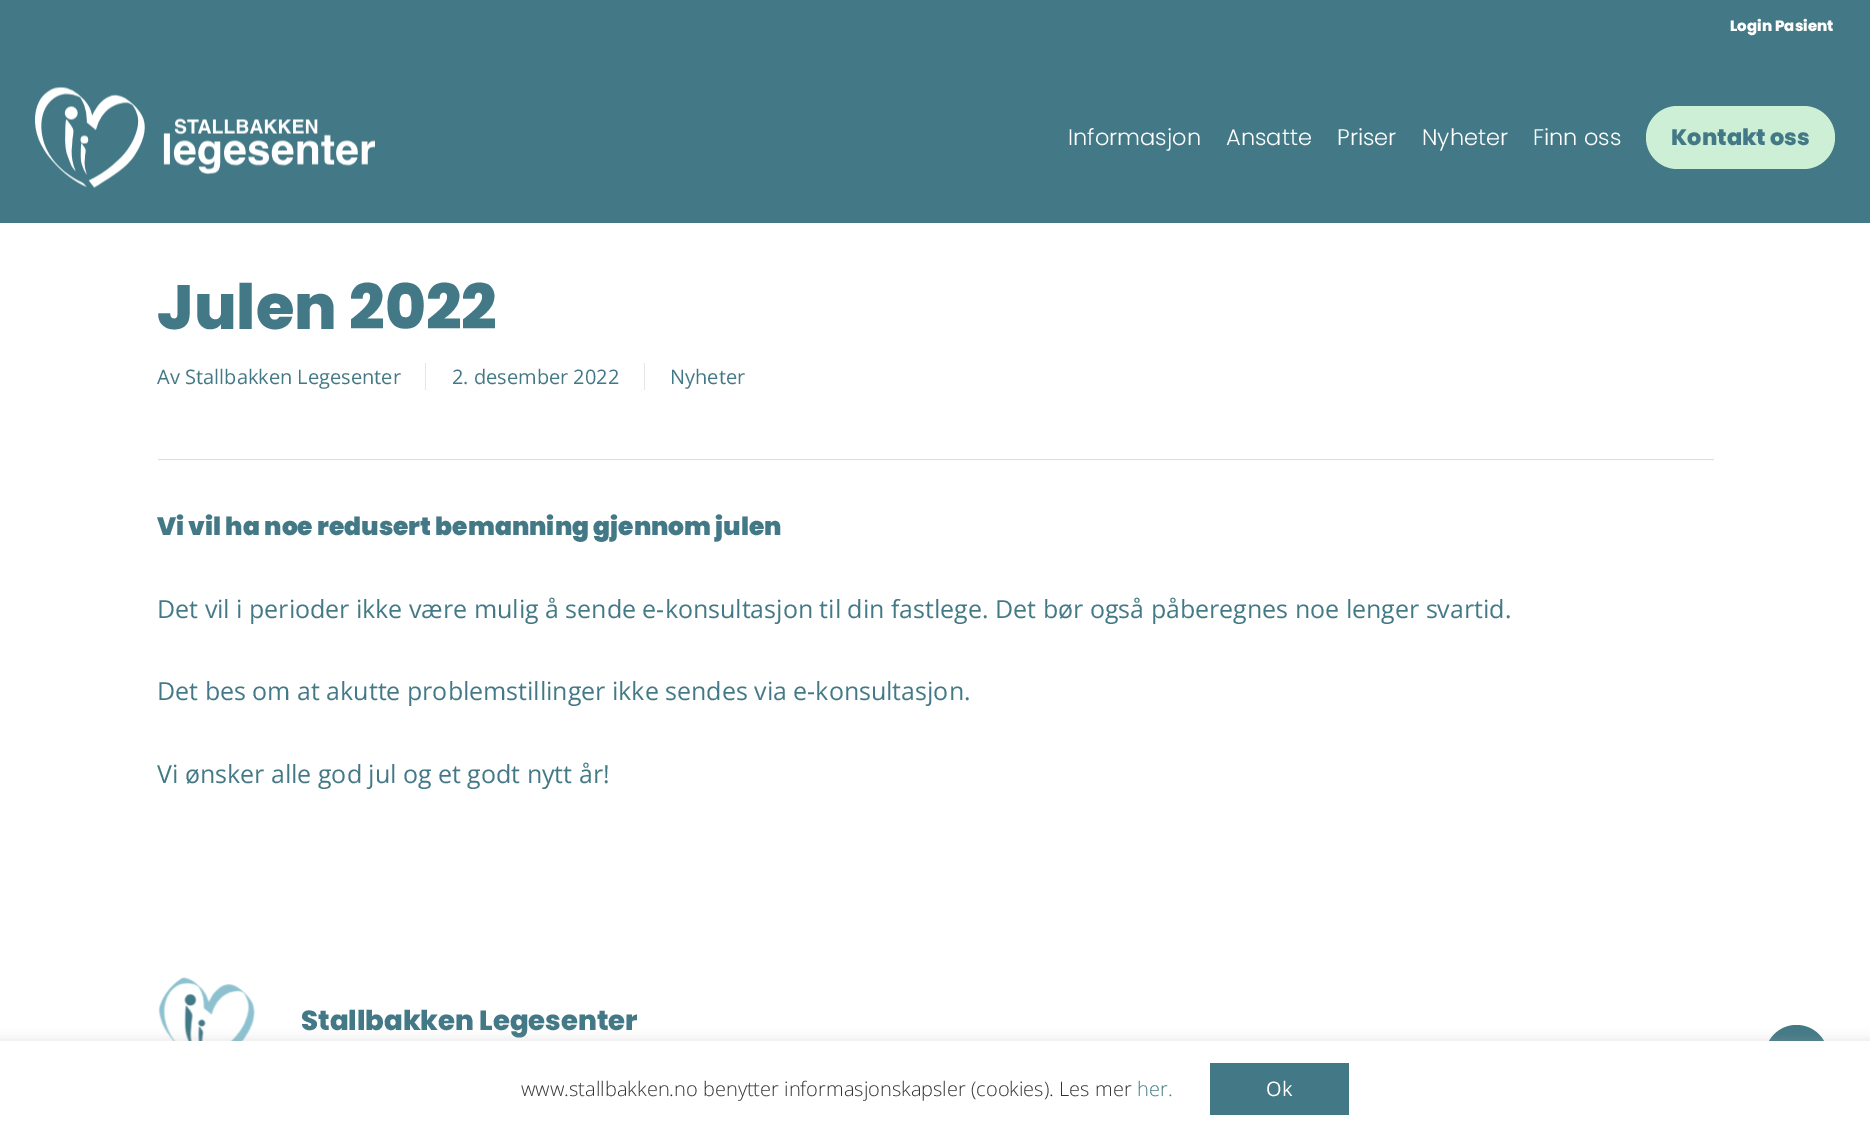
%!PS-Adobe-3.0
%%BoundingBox: 0 0 1870 1129
%%LanguageLevel: 3
%%Pages: 1
%%EndComments
%%BeginProlog
/setink { dup -16 bitshift 255 div exch dup -8 bitshift 255 and 255 div exch 255 and 255 div setrgbcolor } def
/usefont { [ exch dup neg 0 0 3 -1 roll 0 0 ] selectfont } def
/setalpha { dup .setfillconstantalpha .setstrokeconstantalpha } def
/disc { newpath 0 360 arc closepath } def
/rrect { 5 dict begin { /r /h /w /y /x } { exch def } forall
  x r add y moveto x w add y 2 copy h add r arct x w add y h add x 1 index r arct
  x y h add x y r arct x y 2 copy exch w add exch r arct closepath end } def
/softshadow { 12 dict begin { /a /b /q /h /w /y /x } { exch def } forall gsave /was 0 def
  9 -2 -9 { dup b mul 4 div /e exch def 1 sub .425 mul 2.718 exch exp 1 add a .99 .min exch div /now exch def
    1 1 now sub 1 was sub div sub setalpha /was now def
    w h .min e 2 mul add 0 gt { x e sub y e sub w e 2 mul add h e 2 mul add
      q e add b .6 mul add w h .min 2 div e add .min 0 .max rrect fill } if } for grestore end } def
/drawimage { 5 dict begin { /h /w /y /x /name } { exch def } forall
  gsave x y translate w h scale
  w h 8 [w 0 0 h 0 0] name (r) file false 3 colorimage grestore end } def
%%EndProlog
%%BeginSetup
<< /PageSize [1870 1129] /PageUsesTransparency true >> setpagedevice
%%EndSetup
%%Page: 1 1
0 .pushpdf14devicefilter
0 1129 translate 1 -1 scale
4 setmiterlimit
16#FFFFFF setink
0 0 1870 1129 rectfill
16#437986 setink
0 0 1870 223 rectfill
/Poppins-ExtraBold 15 usefont
16#FFFFFF setink
1730 31 moveto (Login Pasient) show
(img1.raw) 35 87 340 101 drawimage
/Poppins-Light 22.5 usefont
[
    [(Informasjon) 1068 145]
    [(Ansatte) 1226 145]
    [(Priser) 1337 145]
    [(Nyheter) 1422 145]
    [(Finn oss) 1533 145]
] { aload pop moveto show } forall
16#CCEFD5 setink
1646 106 189 63 31.5 rrect fill
/Poppins-ExtraBold 22.5 usefont
16#437986 setink
1671 145 moveto (Kontakt oss) show
16#DDDDDD setink
158 459 1556 1 rectfill
/Poppins-ExtraBold 62.5 usefont
16#437986 setink
157 329 moveto (Julen 2022) show
/OpenSans-Regular 20 usefont
[
    [(Av) 157 384]
    [(Stallbakken Legesenter) 185 384]
    [(2. desember 2022) 452 384]
] { aload pop moveto show } forall
16#E6E6E6 setink
425 363 1 27 rectfill
16#437986 setink
670 384 moveto (Nyheter) show
16#E6E6E6 setink
644 363 1 27 rectfill
/Poppins-Black 25 usefont
16#437986 setink
157 535 moveto (Vi vil ha noe redusert bemanning gjennom julen) show
/OpenSans-Regular 25 usefont
[
    [(Det vil i perioder ikke være mulig å sende e-konsultasjon til din fastlege. Det bør også påberegnes noe lenger svartid.) 157 618]
    [(Det bes om at akutte problemstillinger ikke sendes via e-konsultasjon.) 157 700]
    [(Vi ønsker alle god jul og et godt nytt år!) 157 783]
] { aload pop moveto show } forall
(img2.raw) 158 977 97 64 drawimage
/Poppins-ExtraBold 27.5 usefont
301 1030 moveto (Stallbakken Legesenter) show
1796.5 1056.5 31.5 disc fill
16#ACABAB setink
0 1040 1870 89 0 6 0.3 softshadow
16#FFFFFF setink
0 1041 1870 88 rectfill
/OpenSans-Light 20 usefont
16#333333 setink
521 1096 moveto (www.stallbakken.no benytter informasjonskapsler \(cookies\). Les mer) show
16#437986 setink
1137 1096 moveto (her.) show
1210 1063 139 52 rectfill
/OpenSans-Regular 20 usefont
16#FFFFFF setink
1266 1096 moveto (Ok) show
.poppdf14devicefilter showpage
%%EOF
